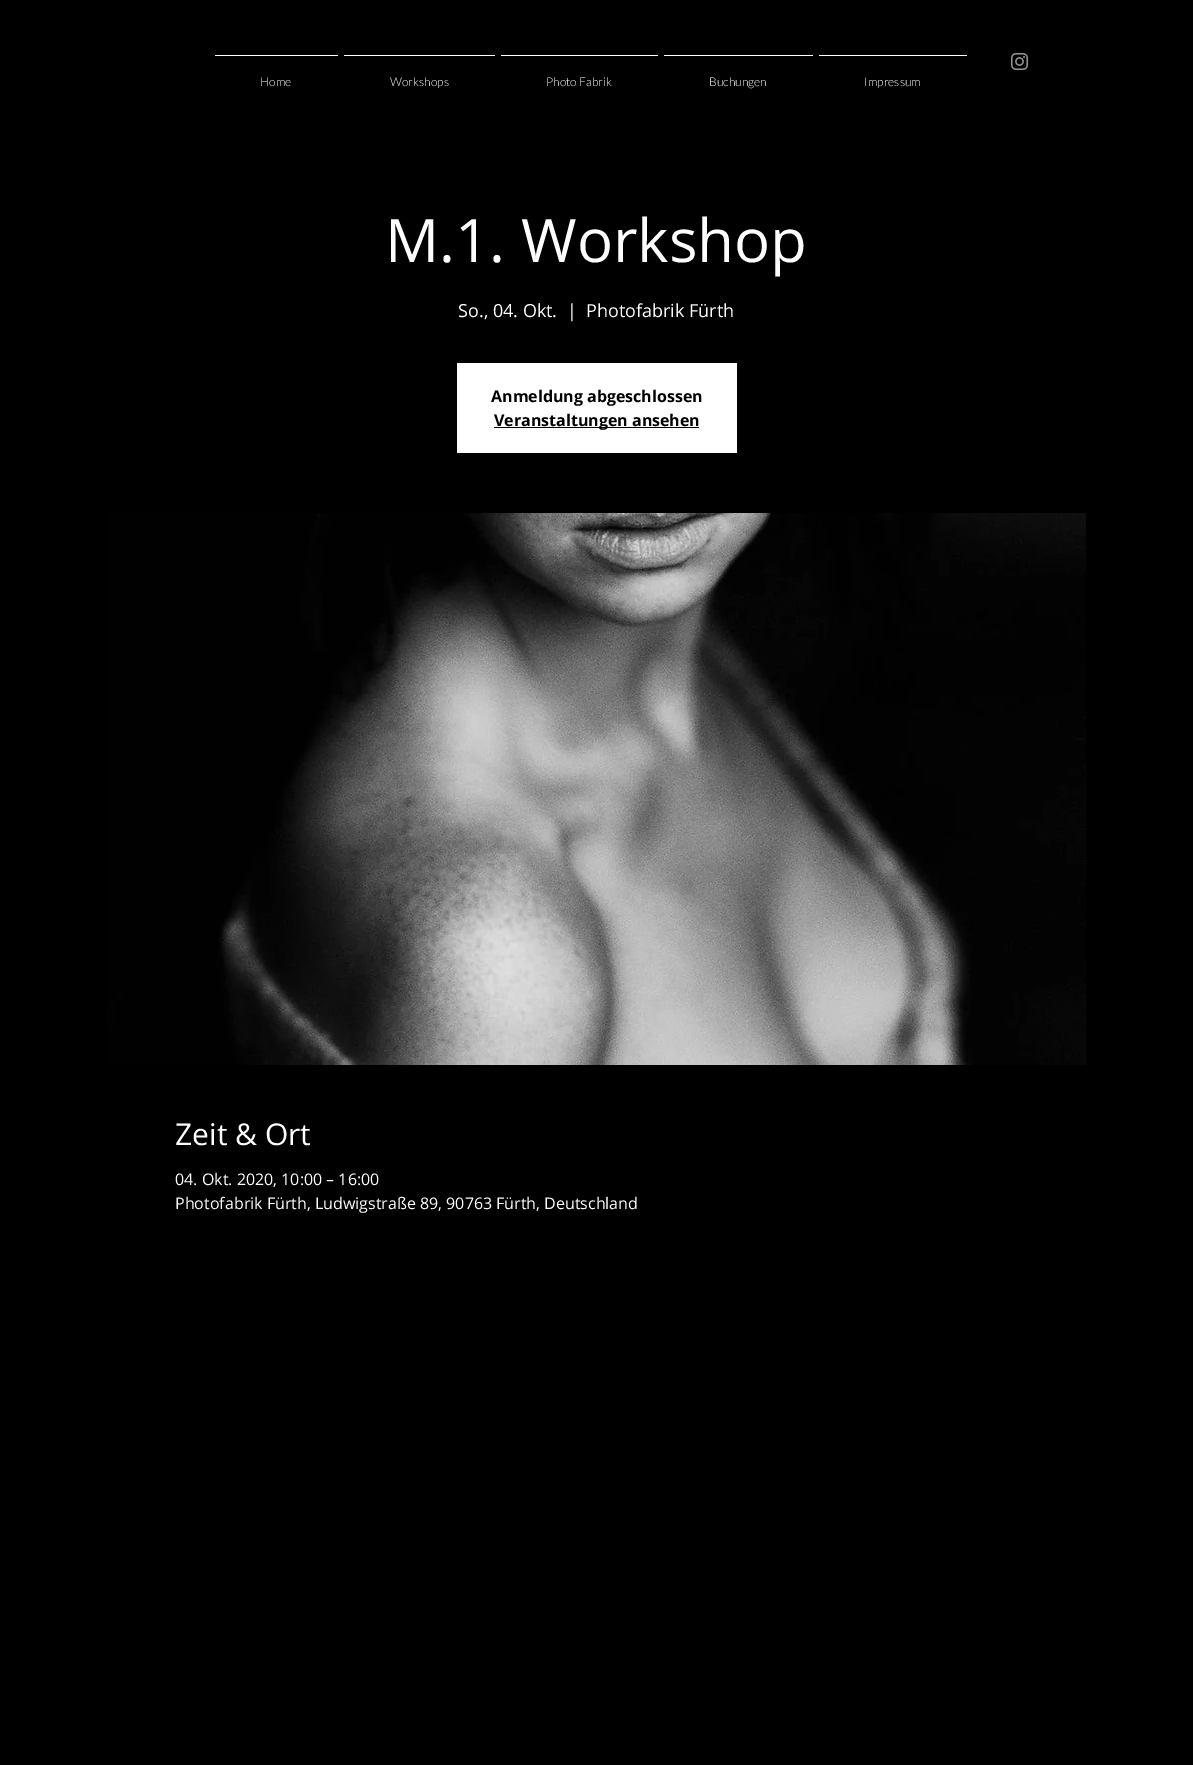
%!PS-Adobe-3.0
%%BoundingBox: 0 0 1193 1765
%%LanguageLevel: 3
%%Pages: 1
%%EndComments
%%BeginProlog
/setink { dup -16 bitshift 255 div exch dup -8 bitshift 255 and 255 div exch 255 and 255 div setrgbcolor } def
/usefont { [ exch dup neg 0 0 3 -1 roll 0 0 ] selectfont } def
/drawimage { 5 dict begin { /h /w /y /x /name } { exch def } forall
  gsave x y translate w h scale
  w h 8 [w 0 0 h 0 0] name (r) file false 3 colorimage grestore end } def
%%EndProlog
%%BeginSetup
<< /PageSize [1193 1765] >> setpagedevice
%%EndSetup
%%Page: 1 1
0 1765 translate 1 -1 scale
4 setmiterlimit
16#000000 setink
0 0 1193 1765 rectfill
(img1.raw) 1010 52 19 19 drawimage
16#FFFFFF setink
215 55 123 1 rectfill
/Lato-Light 12 usefont
260 86 moveto (Home) show
344 55 151 1 rectfill
390 86 moveto (Workshops) show
501 55 157 1 rectfill
546 86 moveto (Photo Fabrik) show
664 55 149 1 rectfill
709 86 moveto (Buchungen) show
819 55 148 1 rectfill
864 86 moveto (Impressum) show
/OpenSans-Regular 60 usefont
385 262 moveto (M.1. Workshop) show
/OpenSans-Regular 18 usefont
[
    [(So., 04. Okt.) 458 317]
    [(|) 567 317]
    [(Photofabrik Fürth) 586 317]
] { aload pop moveto show } forall
457 363 280 90 rectfill
/OpenSans-Bold 16 usefont
16#000000 setink
491 402 moveto (Anmeldung abgeschlossen) show
494 427 205 1 rectfill
494 426 moveto (Veranstaltungen ansehen) show
(img2.raw) 107 513 979 552 drawimage
/OpenSans-Regular 30 usefont
16#FFFFFF setink
175 1145 moveto (Zeit & Ort) show
/OpenSans-Regular 16 usefont
175 1185 moveto (04. Okt. 2020, 10:00 – 16:00) show
175 1209 moveto (Photofabrik Fürth, Ludwigstraße 89, 90763 Fürth, Deutschland) show
showpage
%%EOF
